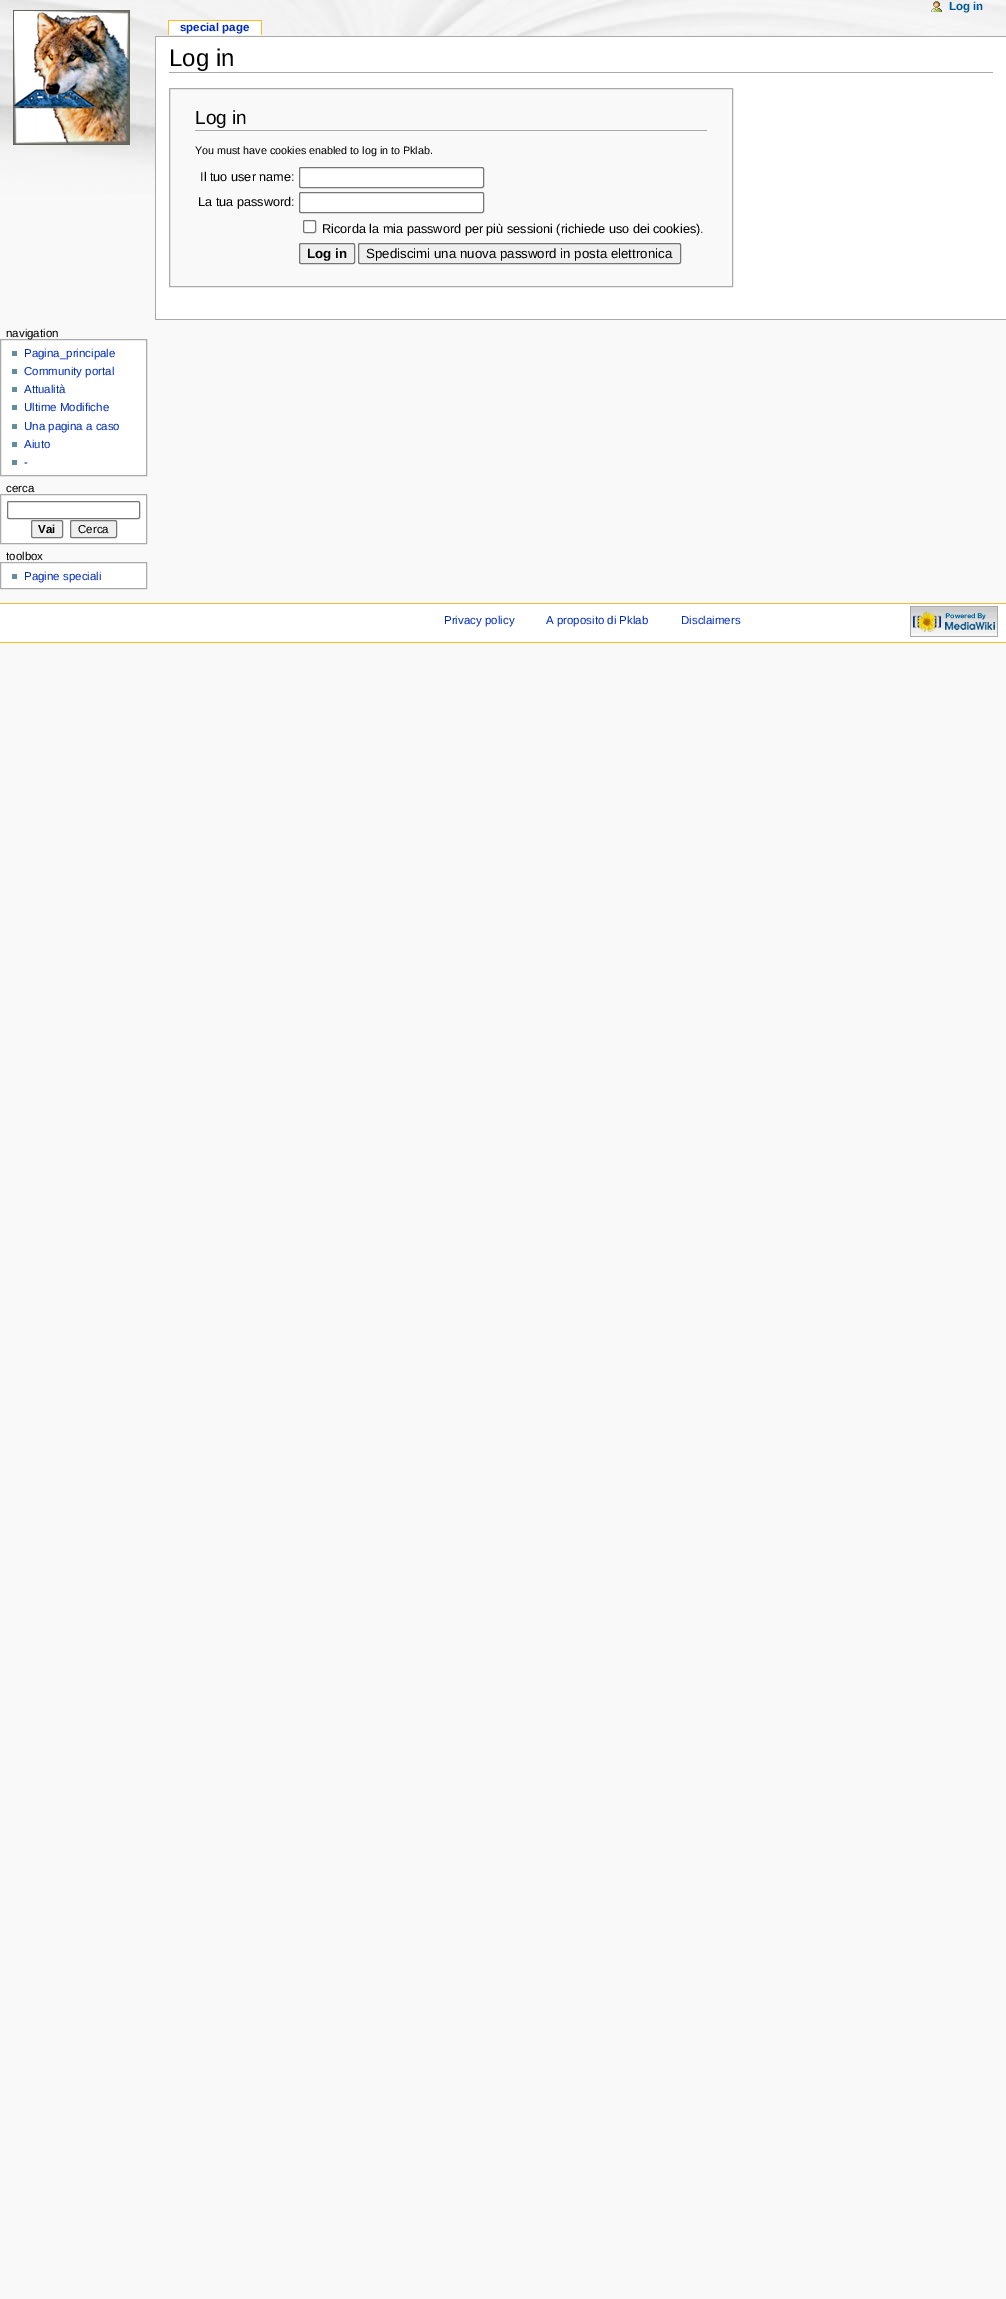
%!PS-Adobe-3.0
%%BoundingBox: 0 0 1006 2299
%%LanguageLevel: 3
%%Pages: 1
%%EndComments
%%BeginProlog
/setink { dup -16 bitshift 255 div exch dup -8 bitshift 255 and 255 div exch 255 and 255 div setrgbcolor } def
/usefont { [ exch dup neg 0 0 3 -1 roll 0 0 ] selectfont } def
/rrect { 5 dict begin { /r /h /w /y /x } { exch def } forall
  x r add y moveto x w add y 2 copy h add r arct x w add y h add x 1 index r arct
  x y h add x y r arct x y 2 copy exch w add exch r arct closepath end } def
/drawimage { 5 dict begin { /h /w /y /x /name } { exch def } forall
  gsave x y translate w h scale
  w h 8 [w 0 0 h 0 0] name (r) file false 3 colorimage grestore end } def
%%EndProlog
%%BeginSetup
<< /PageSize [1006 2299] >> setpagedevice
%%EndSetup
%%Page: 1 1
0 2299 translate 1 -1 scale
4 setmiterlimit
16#F9F9F9 setink
0 0 1006 2299 rectfill
(img1.raw) 0 0 1006 194 drawimage
(img2.raw) 931 1 11 11 drawimage
/LiberationSans-Bold 11.5 usefont
16#005896 setink
949 10 moveto (Log in) show
(img3.raw) 13 10 117 135 drawimage
16#FFFFFF setink
169 21 92 14 rectfill
16#002BB8 setink
180 31 moveto (special page) show
[
    [168 20 94 1 16#FABD23]
    [261 20 1 15 16#FABD23]
    [168 20 1 15 16#FABD23]
] { aload pop setink rectfill } forall
16#FFFFFF setink
0.5 339.5 moveto 146.5 339.5 lineto 146.5 475.5 lineto 0.5 475.5 lineto closepath gsave fill grestore
16#AAAAAA setink
stroke
/LiberationSans-Regular 11.5 usefont
16#000000 setink
6 337 moveto (navigation) show
16#638C9C setink
12 351 5 5 rectfill
16#002BB8 setink
24 357 moveto (Pagina_principale) show
16#638C9C setink
12 369 5 5 rectfill
16#002BB8 setink
24 375 moveto (Community portal) show
16#638C9C setink
12 387 5 5 rectfill
16#002BB8 setink
24 393 moveto (Attualità) show
16#638C9C setink
12 405 5 5 rectfill
16#002BB8 setink
24 411 moveto (Ultime Modifiche) show
16#638C9C setink
12 424 5 5 rectfill
16#002BB8 setink
24 430 moveto (Una pagina a caso) show
16#638C9C setink
12 442 5 5 rectfill
16#002BB8 setink
24 448 moveto (Aiuto) show
16#638C9C setink
12 460 5 5 rectfill
16#002BB8 setink
24 466 moveto (-) show
16#000000 setink
6 492 moveto (cerca) show
16#FFFFFF setink
0.5 494.5 moveto 146.5 494.5 lineto 146.5 543.5 lineto 0.5 543.5 lineto closepath gsave fill grestore
16#AAAAAA setink
stroke
16#767676 setink
7.5 501.5 132 17 1.5 rrect stroke
16#EFEFEF setink
31.5 520.5 31 17 1.5 rrect gsave fill grestore
16#767676 setink
stroke
/LiberationSans-Bold 11.5 usefont
16#000000 setink
38 533 moveto (Vai) show
16#EFEFEF setink
70.5 520.5 46 17 1.5 rrect gsave fill grestore
16#767676 setink
stroke
/LiberationSans-Regular 11.5 usefont
16#000000 setink
78 533 moveto (Cerca) show
6 560 moveto (toolbox) show
16#FFFFFF setink
0.5 562.5 moveto 146.5 562.5 lineto 146.5 588.5 lineto 0.5 588.5 lineto closepath gsave fill grestore
16#AAAAAA setink
stroke
16#638C9C setink
12 574 5 5 rectfill
16#002BB8 setink
24 580 moveto (Pagine speciali) show
[
    [156 37 850 282 16#FFFFFF]
    [155 36 851 1 16#AAAAAA]
    [155 319 851 1 16#AAAAAA]
    [155 36 1 284 16#AAAAAA]
    [169 72 824 1 16#AAAAAA]
] { aload pop setink rectfill } forall
/LiberationSans-Regular 24 usefont
16#000000 setink
169 66 moveto (Log in) show
16#F9F9F9 setink
169.5 88.5 moveto 732.5 88.5 lineto 732.5 286.5 lineto 169.5 286.5 lineto closepath gsave fill grestore
16#AAAAAA setink
stroke
195 130 512 1 rectfill
/LiberationSans-Regular 19 usefont
16#000000 setink
195 124 moveto (Log in) show
/LiberationSans-Regular 10.75 usefont
195 154 moveto (You must have cookies enabled to log in to Pklab.) show
/LiberationSans-Regular 12.7 usefont
200 181 moveto (Il tuo user name:) show
16#FFFFFF setink
299.5 167.5 184 20 1.5 rrect gsave fill grestore
16#767676 setink
stroke
16#000000 setink
198 206 moveto (La tua password:) show
16#FFFFFF setink
299.5 192.5 184 20 1.5 rrect gsave fill grestore
16#767676 setink
stroke
16#FFFFFF setink
303.5 220.5 12 12 1.5 rrect gsave fill grestore
16#767676 setink
stroke
16#000000 setink
322 233 moveto (Ricorda la mia password per più sessioni \(richiede uso dei cookies\).) show
16#EFEFEF setink
299.5 243.5 55 20 1.5 rrect gsave fill grestore
16#767676 setink
stroke
/LiberationSans-Bold 13.3 usefont
16#000000 setink
307 258 moveto (Log in) show
16#EFEFEF setink
358.5 243.5 322 20 1.5 rrect gsave fill grestore
16#767676 setink
stroke
/LiberationSans-Regular 13.3 usefont
16#000000 setink
366 258 moveto (Spediscimi una nuova password in posta elettronica) show
[
    [0 604 1006 38 16#FFFFFF]
    [0 603 1006 1 16#FABD23]
    [0 642 1006 1 16#FABD23]
] { aload pop setink rectfill } forall
/LiberationSans-Regular 11.5 usefont
16#002BB8 setink
[
    [(Privacy policy) 444 624]
    [(A proposito di Pklab) 546 624]
    [(Disclaimers) 681 624]
] { aload pop moveto show } forall
(img4.raw) 910 606 88 31 drawimage
showpage
%%EOF
